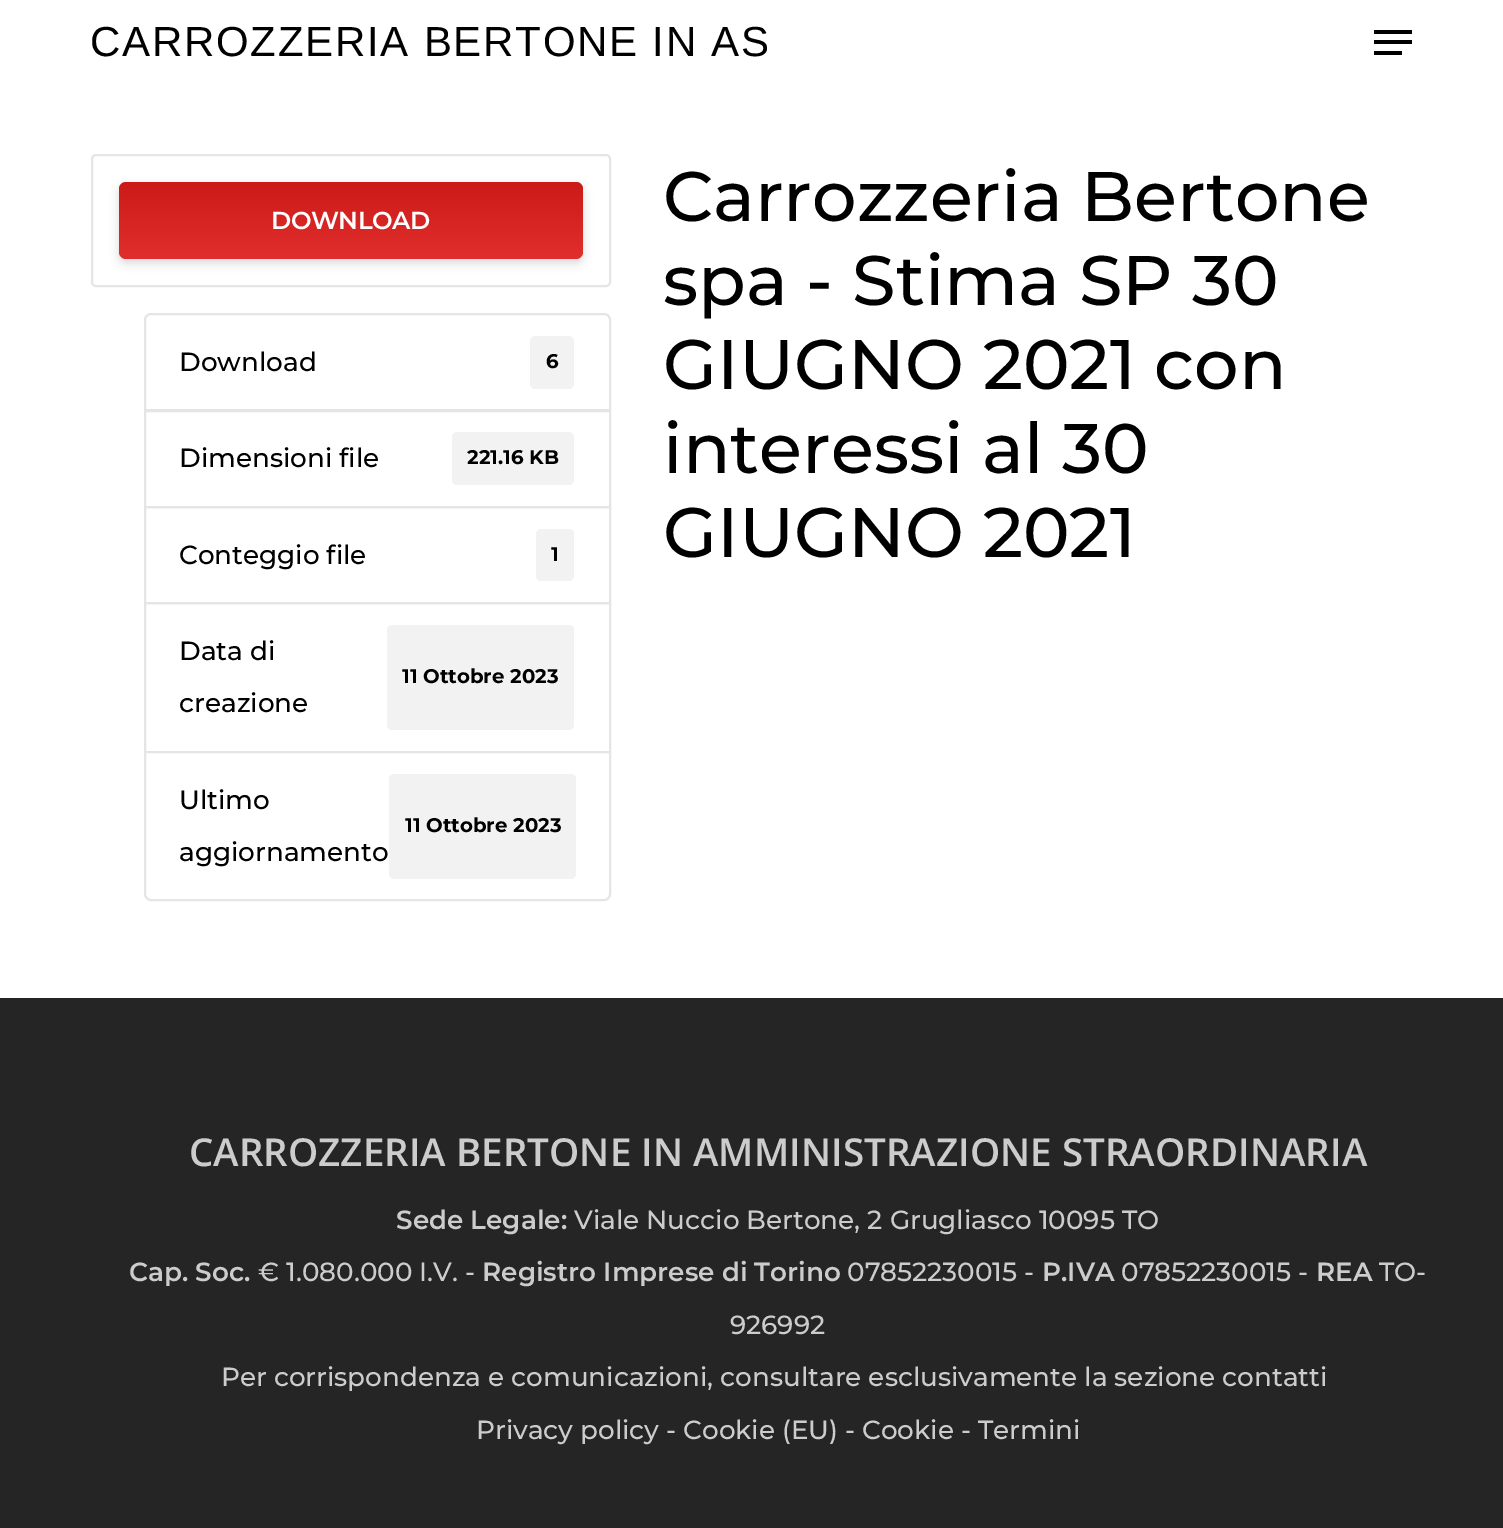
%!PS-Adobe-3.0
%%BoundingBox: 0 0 1503 1528
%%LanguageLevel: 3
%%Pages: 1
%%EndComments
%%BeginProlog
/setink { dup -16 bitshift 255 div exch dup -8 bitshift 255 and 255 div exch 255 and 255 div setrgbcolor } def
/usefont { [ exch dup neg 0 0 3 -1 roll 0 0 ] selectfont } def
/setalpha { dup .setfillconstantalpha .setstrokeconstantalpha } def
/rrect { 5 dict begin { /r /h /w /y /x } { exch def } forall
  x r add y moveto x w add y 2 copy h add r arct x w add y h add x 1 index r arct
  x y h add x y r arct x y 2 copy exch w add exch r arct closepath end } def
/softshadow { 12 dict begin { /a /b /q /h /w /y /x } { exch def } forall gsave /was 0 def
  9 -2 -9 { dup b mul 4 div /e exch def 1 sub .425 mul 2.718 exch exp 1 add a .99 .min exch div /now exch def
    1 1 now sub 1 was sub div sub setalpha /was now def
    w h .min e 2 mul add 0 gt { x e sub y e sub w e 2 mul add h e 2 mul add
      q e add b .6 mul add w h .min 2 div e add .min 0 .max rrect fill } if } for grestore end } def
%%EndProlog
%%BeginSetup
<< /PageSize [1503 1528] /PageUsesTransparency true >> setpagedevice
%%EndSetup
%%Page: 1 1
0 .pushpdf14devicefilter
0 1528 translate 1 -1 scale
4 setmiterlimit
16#FFFFFF setink
0 0 1503 1528 rectfill
/LiberationSans-Regular 42 usefont
16#000000 setink
90 56 moveto 1.75 0 (CARROZZERIA BERTONE IN AS) ashow
[
    [1374 30 38 4 16#000000]
    [1374 51 28 4 16#000000]
    [1374 40 38 4 16#000000]
] { aload pop setink rectfill } forall
16#E5E5E5 setink
2 setlinewidth
92 155 518 131 4 rrect stroke
16#000000 setink
119 186 464 77 7 5 0.15 softshadow
16#DD1C1A setink
119 182 464 77 7 rrect fill
0.08 setalpha
gsave 119 182 464 77 7 rrect clip newpath
<< /ShadingType 2 /ColorSpace /DeviceRGB /Coords [351 182 351 259] /Extend [true true] /Function << /FunctionType 2 /Domain [0 1] /C0 [0 0 0] /C1 [1 1 1] /N 1 >> >> shfill grestore
/Montserrat-SemiBold 24.5 usefont
1 setalpha
16#FFFFFF setink
271 229 moveto -0.5 0 (DOWNLOAD) ashow
16#E5E5E5 setink
151 314 moveto 604 314 lineto 607.5 314 610 316.5 610 320 curveto 610 410 lineto 145 410 lineto 145 320 lineto 145 316.5 147.5 314 151 314 curveto closepath stroke
/Montserrat-Medium 26.25 usefont
16#000000 setink
179 371 moveto (Download) show
16#F2F2F2 setink
530 336 44 53 5 rrect fill
/Montserrat-Bold 19.75 usefont
16#000000 setink
546 368 moveto (6) show
16#E5E5E5 setink
145 411 465 96 rectstroke
/Montserrat-Medium 26.25 usefont
16#000000 setink
179 467 moveto (Dimensioni file) show
16#F2F2F2 setink
452 432 122 53 5 rrect fill
/Montserrat-Bold 19.75 usefont
16#000000 setink
467 464 moveto (221.16 KB) show
16#E5E5E5 setink
145 507 465 96 rectstroke
/Montserrat-Medium 26.25 usefont
16#000000 setink
179 564 moveto (Conteggio file) show
16#F2F2F2 setink
536 529 38 52 5 rrect fill
/Montserrat-Bold 19.75 usefont
16#000000 setink
551 561 moveto (1) show
16#E5E5E5 setink
145 603 465 149 rectstroke
/Montserrat-Medium 26.25 usefont
16#000000 setink
179 660 moveto (Data di) show
16#F2F2F2 setink
387 625 187 105 5 rrect fill
/Montserrat-Bold 19.75 usefont
16#000000 setink
402 683 moveto (11 Ottobre 2023) show
/Montserrat-Medium 26.25 usefont
179 712 moveto (creazione) show
16#FFFFFF setink
145 752 moveto 610 752 lineto 610 894 lineto 610 897.5 607.5 900 604 900 curveto 151 900 lineto 147.5 900 145 897.5 145 894 curveto closepath gsave fill grestore
16#E5E5E5 setink
stroke
16#000000 setink
179 809 moveto (Ultimo) show
16#F2F2F2 setink
389 774 187 105 5 rrect fill
/Montserrat-Bold 19.75 usefont
16#000000 setink
405 832 moveto (11 Ottobre 2023) show
/Montserrat-Medium 26.25 usefont
179 861 moveto (aggiornamento) show
/Montserrat-Medium 70 usefont
[
    [(Carrozzeria Bertone) 663 221]
    [(spa - Stima SP 30) 663 305]
    [(GIUGNO 2021 con) 663 389]
    [(interessi al 30) 663 473]
    [(GIUGNO 2021) 663 557]
] { aload pop moveto show } forall
16#252525 setink
0 998 1503 530 rectfill
/OpenSans-SemiBold 38.5 usefont
16#CCCCCC setink
189 1166 moveto (CARROZZERIA BERTONE IN AMMINISTRAZIONE STRAORDINARIA) show
/Montserrat-SemiBold 26.25 usefont
396 1229 moveto (Sede Legale:) show
/Montserrat-Medium 26.25 usefont
574 1229 moveto (Viale Nuccio Bertone, 2 Grugliasco 10095 TO) show
/Montserrat-SemiBold 26.25 usefont
129 1281 moveto (Cap. Soc.) show
/Montserrat-Medium 26.25 usefont
258 1281 moveto (€ 1.080.000 I.V. -) show
/Montserrat-SemiBold 26.25 usefont
482 1281 moveto (Registro Imprese di Torino) show
/Montserrat-Medium 26.25 usefont
847 1281 moveto (07852230015 -) show
/Montserrat-SemiBold 26.25 usefont
1042 1281 moveto (P.IVA) show
/Montserrat-Medium 26.25 usefont
1121 1281 moveto (07852230015 -) show
/Montserrat-SemiBold 26.25 usefont
1316 1281 moveto (REA) show
/Montserrat-Medium 26.25 usefont
[
    [(TO-) 1379 1281]
    [(926992) 730 1334]
    [(Per corrispondenza e comunicazioni, consultare esclusivamente la sezione contatti) 221 1386]
    [(Privacy policy - Cookie \(EU\) - Cookie - Termini) 476 1439]
] { aload pop moveto show } forall
.poppdf14devicefilter showpage
%%EOF
